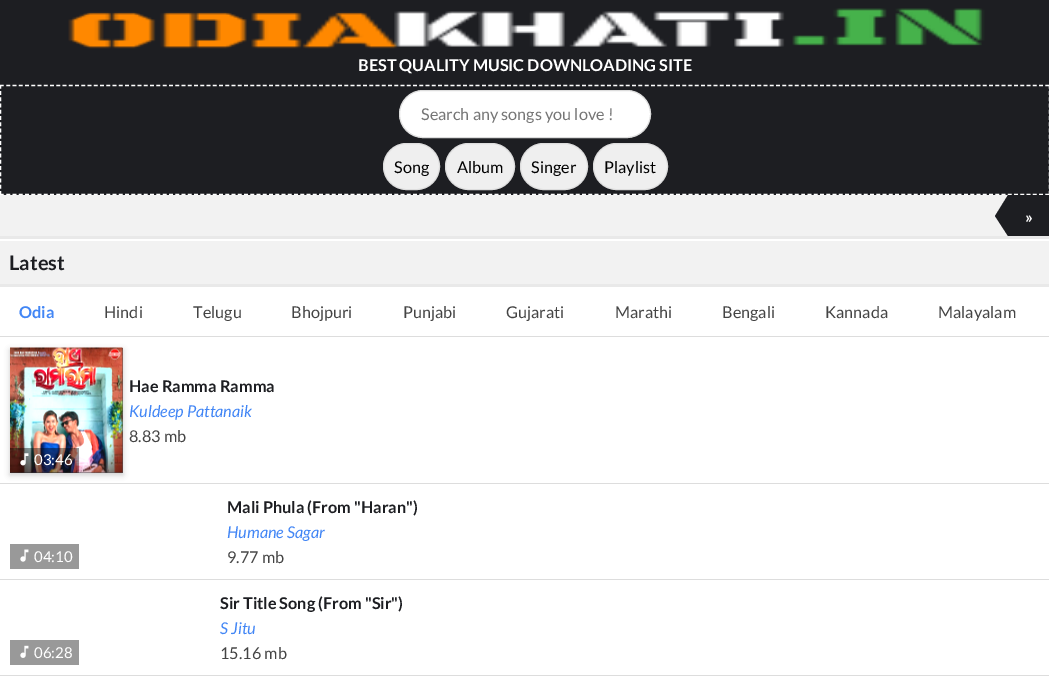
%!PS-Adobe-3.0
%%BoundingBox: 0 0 1049 686
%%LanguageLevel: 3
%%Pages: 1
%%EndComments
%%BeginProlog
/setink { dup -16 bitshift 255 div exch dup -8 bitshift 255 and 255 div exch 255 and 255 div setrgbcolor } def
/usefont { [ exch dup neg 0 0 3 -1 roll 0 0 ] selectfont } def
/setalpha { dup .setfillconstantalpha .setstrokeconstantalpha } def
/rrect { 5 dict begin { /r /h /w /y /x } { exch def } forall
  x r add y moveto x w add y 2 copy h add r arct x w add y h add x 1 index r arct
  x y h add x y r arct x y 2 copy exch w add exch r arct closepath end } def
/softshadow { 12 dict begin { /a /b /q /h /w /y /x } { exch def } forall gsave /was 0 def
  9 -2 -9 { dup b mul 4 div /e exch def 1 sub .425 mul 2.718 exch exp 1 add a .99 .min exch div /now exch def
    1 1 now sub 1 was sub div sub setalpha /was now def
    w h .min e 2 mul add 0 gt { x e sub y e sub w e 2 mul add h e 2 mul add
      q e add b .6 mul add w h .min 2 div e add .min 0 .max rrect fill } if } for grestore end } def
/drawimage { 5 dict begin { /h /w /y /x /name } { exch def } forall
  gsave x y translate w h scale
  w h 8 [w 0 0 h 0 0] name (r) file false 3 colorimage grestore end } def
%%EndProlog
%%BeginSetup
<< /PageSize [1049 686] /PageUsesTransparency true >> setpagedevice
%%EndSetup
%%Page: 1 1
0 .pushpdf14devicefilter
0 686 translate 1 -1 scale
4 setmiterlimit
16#FFFFFF setink
0 0 1049 686 rectfill
16#1D1E22 setink
0 0 1049 195 rectfill
(img1.raw) 68 8 917 41 drawimage
/Lato-Bold 16.25 usefont
16#FFFFFF setink
358 71 moveto (BEST QUALITY MUSIC DOWNLOADING SITE) show
1.2 setlinewidth
[3.75 2.51] 0 setdash
0 85.5 moveto 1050 85.5 lineto stroke
[3.75 2.5] 0 setdash
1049.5 85 moveto 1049.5 195 lineto stroke
[3.75 2.51] 0 setdash
0 194.5 moveto 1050 194.5 lineto stroke
[3.75 2.5] 0 setdash
0.5 85 moveto 0.5 195 lineto stroke
399.5 90.5 251 47 23.5 rrect gsave fill grestore
16#DDDDDD setink
1 setlinewidth
[] 0 setdash
stroke
/Lato-Regular 16.25 usefont
16#757575 setink
421 120 moveto (Search any songs you love !) show
16#EFEFEF setink
383.5 143.5 56 46 23 rrect gsave fill grestore
16#DDDDDD setink
stroke
16#000000 setink
394 173 moveto (Song) show
16#EFEFEF setink
445.5 143.5 69 46 23 rrect gsave fill grestore
16#DDDDDD setink
stroke
16#000000 setink
457 173 moveto (Album) show
16#EFEFEF setink
520.5 143.5 67 46 23 rrect gsave fill grestore
16#DDDDDD setink
stroke
16#000000 setink
531 173 moveto (Singer) show
16#EFEFEF setink
593.5 143.5 74 46 23 rrect gsave fill grestore
16#DDDDDD setink
stroke
16#000000 setink
604 173 moveto (Playlist) show
[
    [0 195 1008 41 16#F2F2F2]
    [0 236 1049 3 16#E9E9E9]
    [1008 195 41 41 16#1D1E22]
] { aload pop setink rectfill } forall
1008 195 moveto 1008 236 lineto 995 216 lineto closepath fill
/Lato-Bold 16.25 usefont
16#FFFFFF setink
1025 223 moveto (») show
16#F2F2F2 setink
0 241 1049 43 rectfill
16#E9E9E9 setink
0 284 1049 3 rectfill
/Lato-Bold 20 usefont
16#1D1E22 setink
9 270 moveto (Latest) show
16#DDDDDD setink
0 336 1049 1 rectfill
/Lato-Bold 16.25 usefont
16#4286F5 setink
19 318 moveto (Odia) show
/Lato-Regular 16.25 usefont
16#444444 setink
[
    [(Hindi) 104 318]
    [(Telugu) 193 318]
    [(Bhojpuri) 291 318]
    [(Punjabi) 403 318]
    [(Gujarati) 506 318]
    [(Marathi) 615 318]
    [(Bengali) 722 318]
    [(Kannada) 825 318]
    [(Malayalam) 938 318]
] { aload pop moveto show } forall
16#DDDDDD setink
0 483 1049 1 rectfill
/Lato-Bold 16.25 usefont
16#1D1E22 setink
129 392 moveto (Hae Ramma Ramma) show
/Lato-Italic 16.25 usefont
16#4286F5 setink
129 417 moveto (Kuldeep Pattanaik) show
/Lato-Regular 16.25 usefont
16#444444 setink
129 442 moveto (8.83 mb) show
16#000000 setink
10 350 113 125 0 3 0.2 softshadow
16#535559 setink
10 348 113 125 rectfill
(img2.raw) 10 347 113 126 drawimage
0.4 setalpha
16#000000 setink
10 448 69 25 rectfill
1 setalpha
(img3.raw) 20 453 9 13 drawimage
/Lato-Regular 15 usefont
16#FFFFFF setink
34 465 moveto (03:46) show
16#DDDDDD setink
0 579 1049 1 rectfill
16#999999 setink
10 544 69 25 rectfill
(img4.raw) 20 549 9 13 drawimage
16#FFFFFF setink
34 562 moveto (04:10) show
/Lato-Bold 16.25 usefont
16#1D1E22 setink
227 513 moveto (Mali Phula \(From "Haran"\)) show
/Lato-Italic 16.25 usefont
16#4286F5 setink
227 538 moveto (Humane Sagar) show
/Lato-Regular 16.25 usefont
16#444444 setink
227 563 moveto (9.77 mb) show
16#DDDDDD setink
0 675 1049 1 rectfill
16#999999 setink
10 640 69 25 rectfill
(img5.raw) 20 645 9 13 drawimage
/Lato-Regular 15 usefont
16#FFFFFF setink
34 658 moveto (06:28) show
/Lato-Bold 16.25 usefont
16#1D1E22 setink
220 609 moveto (Sir Title Song \(From "Sir"\)) show
/Lato-Italic 16.25 usefont
16#4286F5 setink
220 634 moveto (S Jitu) show
/Lato-Regular 16.25 usefont
16#444444 setink
220 659 moveto (15.16 mb) show
.poppdf14devicefilter showpage
%%EOF
